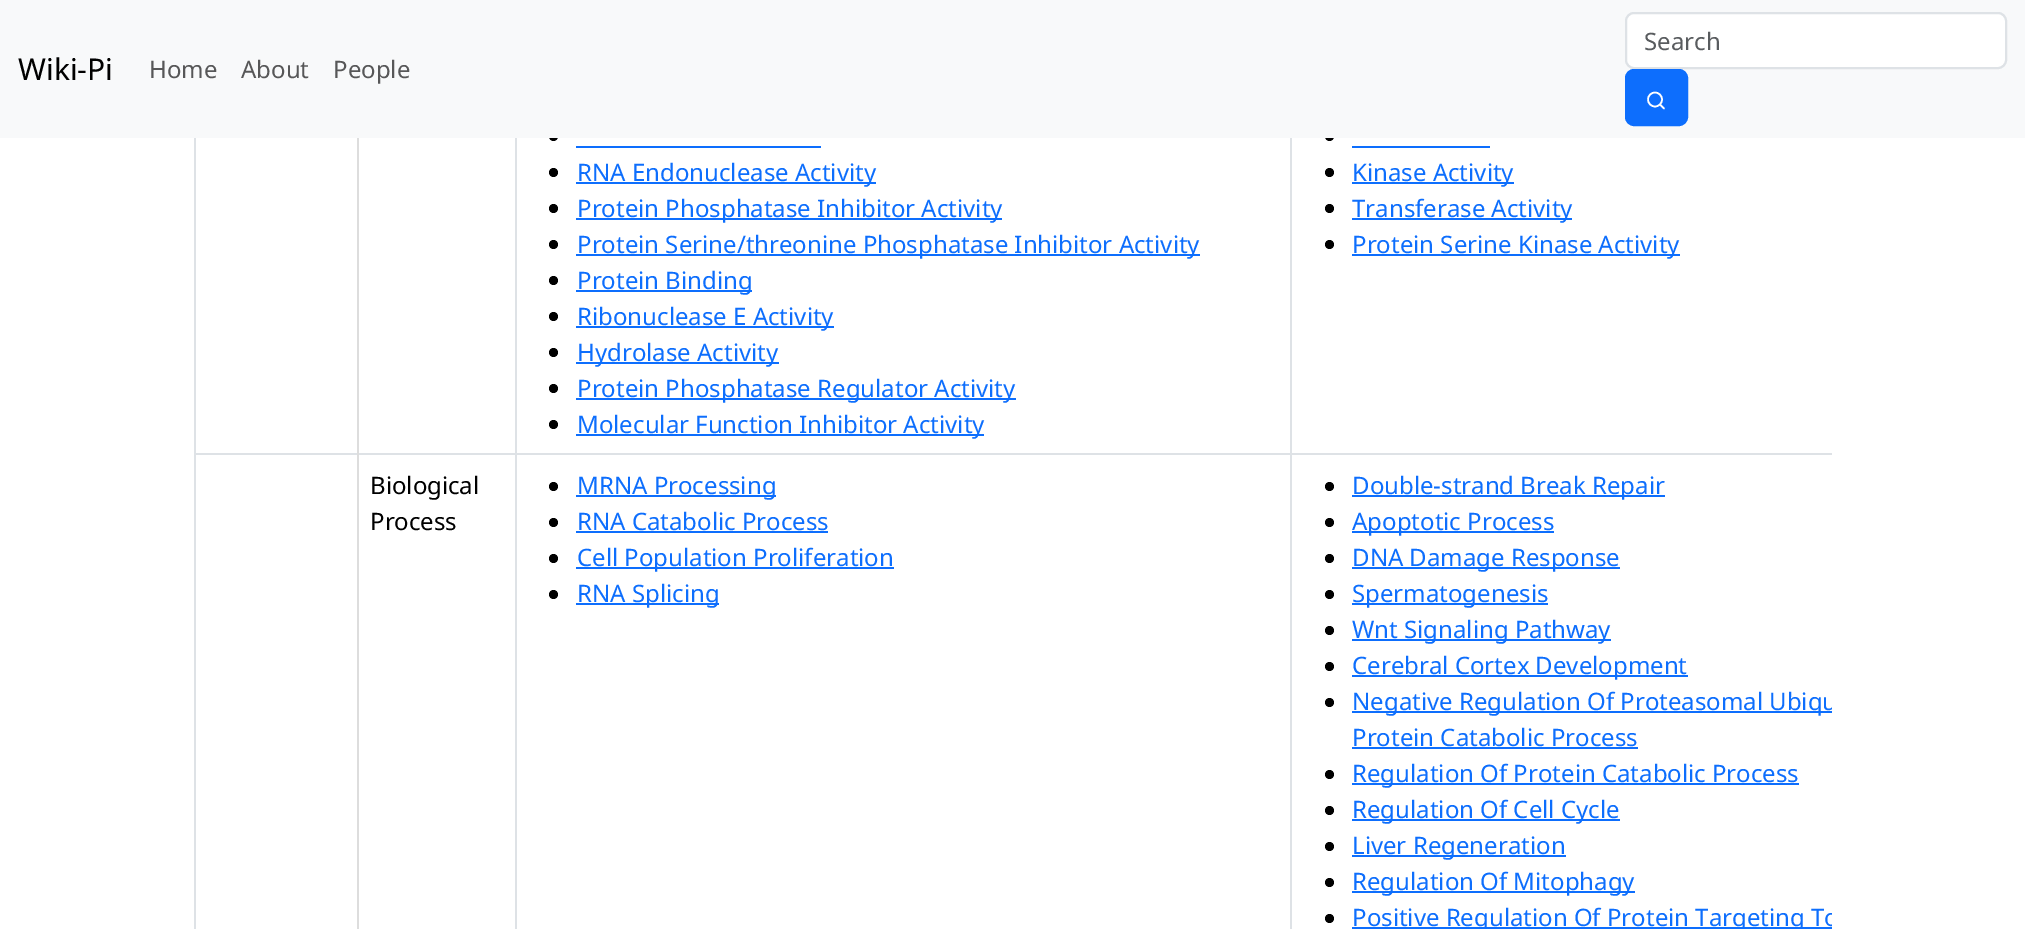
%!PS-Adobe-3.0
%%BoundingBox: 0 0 2025 929
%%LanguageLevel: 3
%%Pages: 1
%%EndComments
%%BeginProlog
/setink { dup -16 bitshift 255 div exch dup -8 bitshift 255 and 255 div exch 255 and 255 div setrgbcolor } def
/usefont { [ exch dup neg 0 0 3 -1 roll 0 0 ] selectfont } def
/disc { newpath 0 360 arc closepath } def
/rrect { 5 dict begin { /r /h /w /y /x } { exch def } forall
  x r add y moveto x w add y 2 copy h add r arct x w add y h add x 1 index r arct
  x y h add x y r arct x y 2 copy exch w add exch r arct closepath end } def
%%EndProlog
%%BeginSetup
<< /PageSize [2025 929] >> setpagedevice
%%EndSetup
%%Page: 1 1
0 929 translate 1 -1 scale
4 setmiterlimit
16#FFFFFF setink
0 0 2025 929 rectfill
16#000000 setink
553.5 136.5 4.5 disc fill
1329.5 136.5 4.5 disc fill
16#F8F9FA setink
0 0 2025 138 rectfill
/NotoSans-Regular 30 usefont
16#000000 setink
18 80 moveto (Wiki-Pi) show
16#FFFFFF setink
1626 13 380 55 8 rrect gsave fill grestore
16#DEE2E6 setink
2 setlinewidth
stroke
/NotoSans-Regular 24 usefont
16#595C5F setink
1644 50 moveto (Search) show
16#0D6EFD setink
1626 70 61 55 8 rrect gsave fill grestore
stroke
16#FFFFFF setink
1.6 setlinewidth
1655 99.5 7 disc stroke
1 setlinecap
1664 108.5 moveto 1660.5 105 lineto stroke
16#575758 setink
[
    [(Home) 149 78]
    [(About) 241 78]
    [(People) 333 78]
] { aload pop moveto show } forall
[
    [194 453 1638 2 16#DEE2E6]
    [357 138 2 791 16#DDDDDD]
    [194 138 2 791 16#DEE2E6]
    [576 146 245 2 16#0D6EFD]
] { aload pop setink rectfill } forall
16#000000 setink
553.5 172.5 4.5 disc fill
16#0D6EFD setink
576 182 300 2 rectfill
577 181 moveto (RNA Endonuclease Activity) show
16#000000 setink
553.5 208.5 4.5 disc fill
16#0D6EFD setink
576 218 426 2 rectfill
577 217 moveto (Protein Phosphatase Inhibitor Activity) show
16#000000 setink
553.5 244.5 4.5 disc fill
16#0D6EFD setink
576 254 624 2 rectfill
577 253 moveto (Protein Serine/threonine Phosphatase Inhibitor Activity) show
16#000000 setink
553.5 280.5 4.5 disc fill
16#0D6EFD setink
576 290 176 2 rectfill
577 289 moveto (Protein Binding) show
16#000000 setink
553.5 316.5 4.5 disc fill
16#0D6EFD setink
576 326 258 2 rectfill
577 325 moveto (Ribonuclease E Activity) show
16#000000 setink
553.5 352.5 4.5 disc fill
16#0D6EFD setink
576 362 203 2 rectfill
577 361 moveto (Hydrolase Activity) show
16#000000 setink
553.5 388.5 4.5 disc fill
16#0D6EFD setink
576 398 440 2 rectfill
577 397 moveto (Protein Phosphatase Regulator Activity) show
16#000000 setink
553.5 424.5 4.5 disc fill
16#0D6EFD setink
576 434 408 2 rectfill
577 433 moveto (Molecular Function Inhibitor Activity) show
1352 146 138 2 rectfill
16#000000 setink
1329.5 172.5 4.5 disc fill
16#0D6EFD setink
1352 182 162 2 rectfill
1352 181 moveto (Kinase Activity) show
16#000000 setink
1329.5 208.5 4.5 disc fill
16#0D6EFD setink
1352 218 220 2 rectfill
1352 217 moveto (Transferase Activity) show
16#000000 setink
1329.5 244.5 4.5 disc fill
16#0D6EFD setink
1352 254 328 2 rectfill
1352 253 moveto (Protein Serine Kinase Activity) show
16#000000 setink
370 494 moveto (Biological) show
370 530 moveto (Process) show
16#DEE2E6 setink
515 138 2 791 rectfill
16#000000 setink
553.5 486.5 4.5 disc fill
16#0D6EFD setink
576 495 200 2 rectfill
577 494 moveto (MRNA Processing) show
16#000000 setink
553.5 522.5 4.5 disc fill
16#0D6EFD setink
577 530 moveto (RNA Catabolic Process) show
576 531 252 2 rectfill
16#000000 setink
553.5 558.5 4.5 disc fill
16#0D6EFD setink
576 567 318 2 rectfill
577 566 moveto (Cell Population Proliferation) show
16#000000 setink
553.5 594.5 4.5 disc fill
16#0D6EFD setink
576 603 143 2 rectfill
577 602 moveto (RNA Splicing) show
16#DEE2E6 setink
1290 138 2 791 rectfill
16#000000 setink
1329.5 486.5 4.5 disc fill
16#0D6EFD setink
1352 495 313 2 rectfill
1352 494 moveto (Double-strand Break Repair) show
16#000000 setink
1329.5 522.5 4.5 disc fill
16#0D6EFD setink
1352 531 202 2 rectfill
1352 530 moveto (Apoptotic Process) show
16#000000 setink
1329.5 558.5 4.5 disc fill
16#0D6EFD setink
1352 567 268 2 rectfill
1352 566 moveto (DNA Damage Response) show
16#000000 setink
1329.5 594.5 4.5 disc fill
16#0D6EFD setink
1352 603 196 2 rectfill
1352 602 moveto (Spermatogenesis) show
16#000000 setink
1329.5 630.5 4.5 disc fill
16#0D6EFD setink
1352 639 259 2 rectfill
1352 638 moveto (Wnt Signaling Pathway) show
16#000000 setink
1329.5 666.5 4.5 disc fill
16#0D6EFD setink
1352 675 336 2 rectfill
1352 674 moveto (Cerebral Cortex Development) show
16#000000 setink
1329.5 702.5 4.5 disc fill
16#0D6EFD setink
1352 711 480 2 rectfill
gsave
194 0 1638 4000 rectclip
1352 710 moveto (Negative Regulation Of Proteasomal Ubiqu) show
grestore
1352 746 moveto (Protein Catabolic Process) show
1352 747 286 2 rectfill
16#000000 setink
1329.5 774.5 4.5 disc fill
16#0D6EFD setink
1352 783 447 2 rectfill
1352 782 moveto (Regulation Of Protein Catabolic Process) show
16#000000 setink
1329.5 810.5 4.5 disc fill
16#0D6EFD setink
1352 819 268 2 rectfill
1352 818 moveto (Regulation Of Cell Cycle) show
16#000000 setink
1329.5 846.5 4.5 disc fill
16#0D6EFD setink
1352 855 214 2 rectfill
1352 854 moveto (Liver Regeneration) show
16#000000 setink
1329.5 882.5 4.5 disc fill
16#0D6EFD setink
1352 891 283 2 rectfill
1352 890 moveto (Regulation Of Mitophagy) show
16#000000 setink
1329.5 918.5 4.5 disc fill
16#0D6EFD setink
1352 927 480 2 rectfill
gsave
194 0 1638 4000 rectclip
1352 926 moveto (Positive Regulation Of Protein Targeting To) show
grestore
showpage
%%EOF
